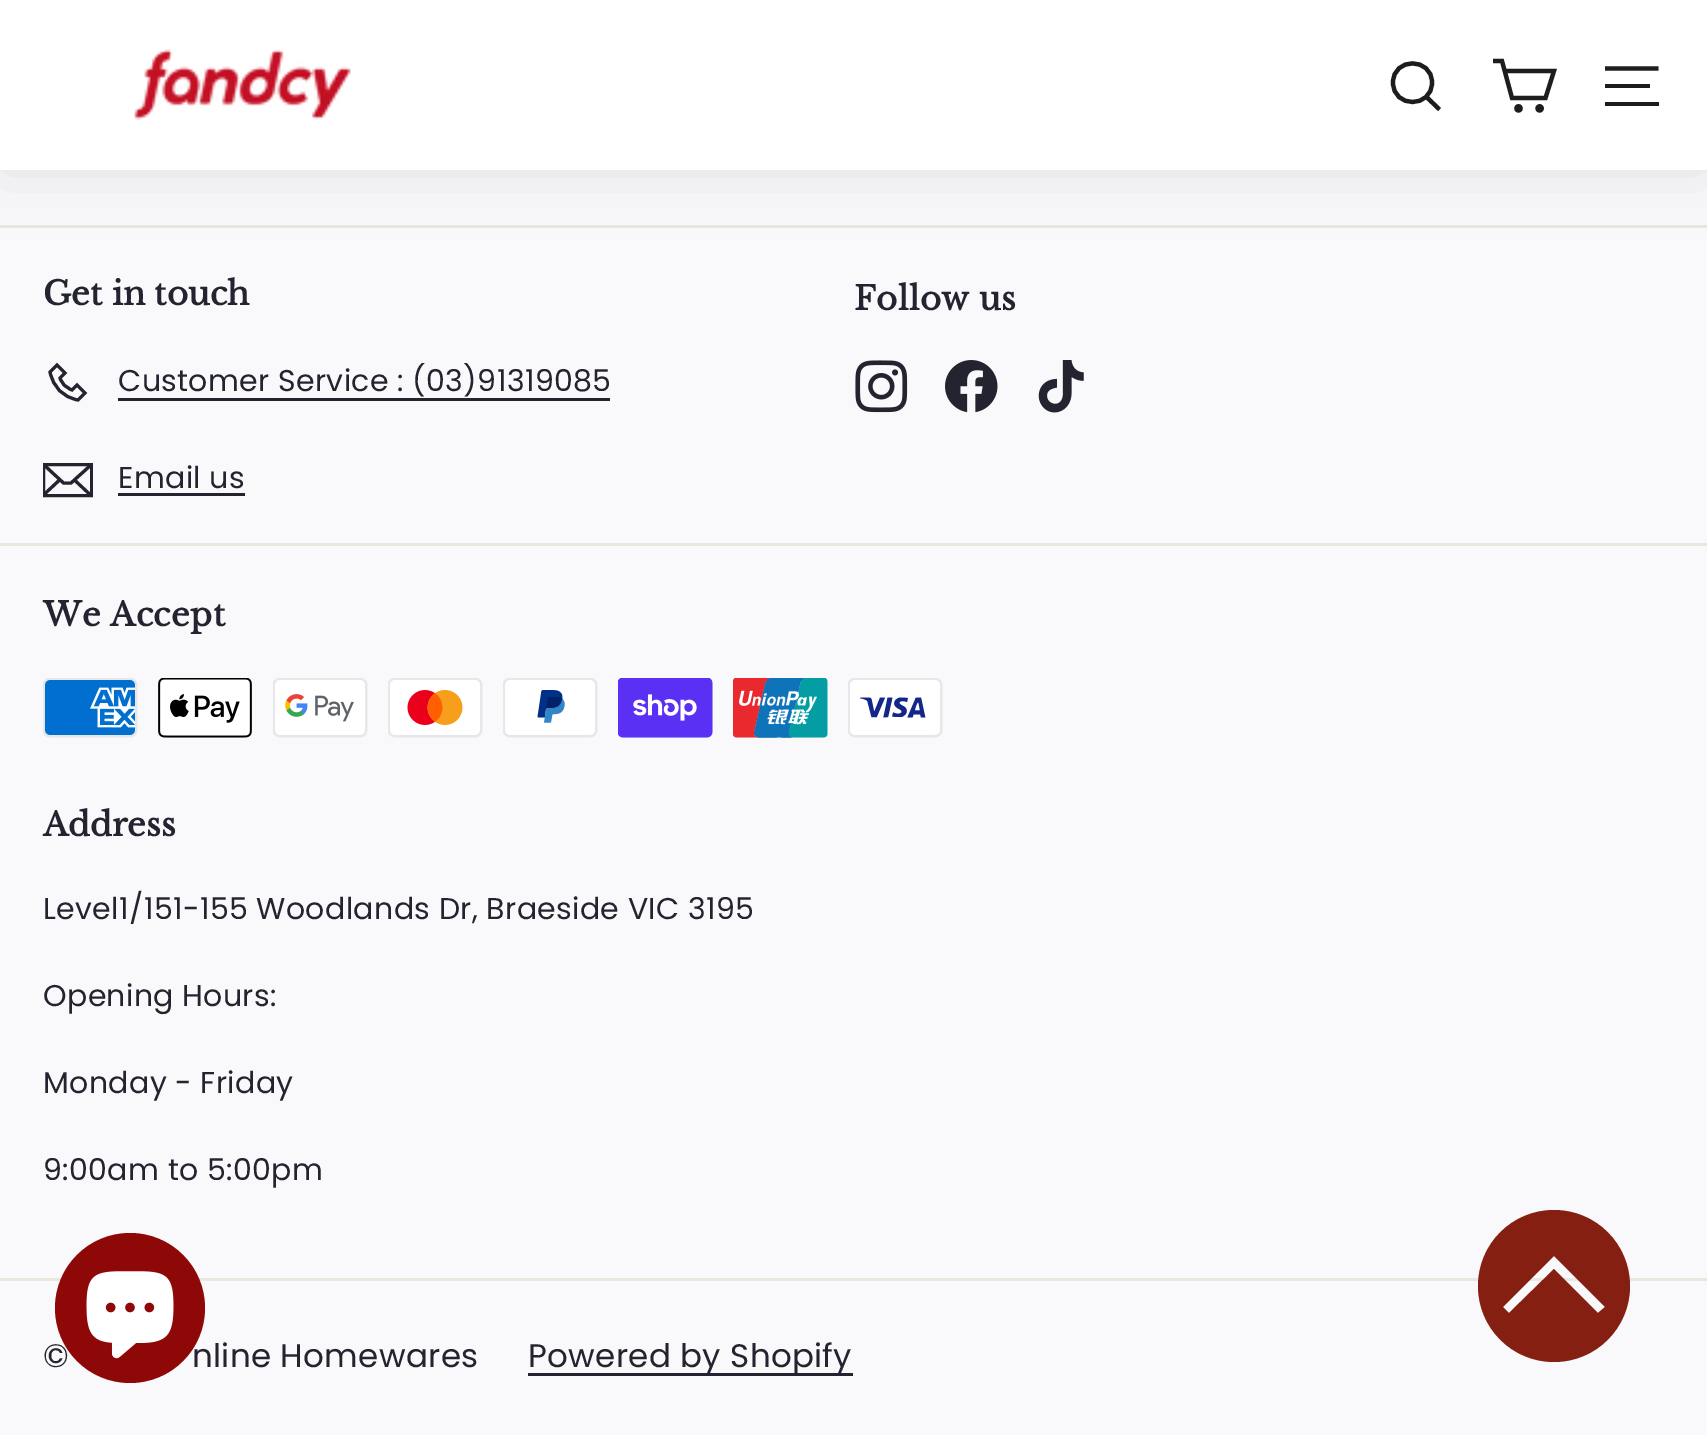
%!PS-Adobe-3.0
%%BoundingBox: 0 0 1707 1435
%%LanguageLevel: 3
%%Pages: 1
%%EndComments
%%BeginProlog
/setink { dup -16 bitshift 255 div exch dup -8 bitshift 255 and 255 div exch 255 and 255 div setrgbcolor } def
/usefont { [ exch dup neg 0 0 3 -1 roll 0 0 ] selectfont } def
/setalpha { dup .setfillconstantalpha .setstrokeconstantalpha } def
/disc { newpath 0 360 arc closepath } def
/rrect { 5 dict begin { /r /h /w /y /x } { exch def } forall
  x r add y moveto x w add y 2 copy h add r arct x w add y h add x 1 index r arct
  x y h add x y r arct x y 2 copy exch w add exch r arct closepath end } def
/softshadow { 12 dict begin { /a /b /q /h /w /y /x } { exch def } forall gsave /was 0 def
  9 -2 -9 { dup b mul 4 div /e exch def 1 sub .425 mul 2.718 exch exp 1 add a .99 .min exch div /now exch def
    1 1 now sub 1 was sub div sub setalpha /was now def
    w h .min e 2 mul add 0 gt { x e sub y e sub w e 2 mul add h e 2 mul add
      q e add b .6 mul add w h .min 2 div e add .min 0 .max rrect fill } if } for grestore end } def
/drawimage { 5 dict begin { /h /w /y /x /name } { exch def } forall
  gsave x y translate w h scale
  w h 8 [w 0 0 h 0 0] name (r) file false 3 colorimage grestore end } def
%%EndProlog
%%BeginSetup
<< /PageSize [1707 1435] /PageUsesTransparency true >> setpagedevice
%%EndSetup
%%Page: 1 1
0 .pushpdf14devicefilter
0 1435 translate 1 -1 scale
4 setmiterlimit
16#F9F9FB setink
0 0 1707 1435 rectfill
16#E8E8E1 setink
0 225 1707 3 rectfill
16#000000 setink
0 0 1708 170 0 31 0.1 softshadow
16#FFFFFF setink
0 0 1707 170 rectfill
(img1.raw) 134 49 217 72 drawimage
16#1C1D1D setink
4.2 setlinewidth
1432 82.5 moveto 1432 108.5 1393 108.5 1393 82.5 curveto 1393 57 1432 57 1432 82.5 curveto closepath 1439.5 109.5 moveto 1426.5 97 lineto stroke
1505 71 moveto 1554 71 lineto 1545.5 98 lineto 1512 98 lineto 1502 61 lineto 1493 61 lineto stroke
1518.5 108.4 2.1 disc stroke
1539.6 108.4 2.1 disc stroke
1605 68.5 moveto 1658.5 68.5 lineto stroke
1605 84 45 4 rectfill
1605 102 54 4 rectfill
/LibreBaskerville-Bold 32.5 usefont
16#242430 setink
43 305 moveto (Get in touch) show
3.1 setlinewidth
57 365 moveto 65 373 lineto 60 378 lineto 61.5 383.5 65.5 387.5 72 390 curveto 77 385 lineto 85 393 lineto 78 400 lineto 62.5 397 53.5 387.5 50 372 curveto closepath stroke
/Poppins-Regular 30 usefont
118 391 moveto 0.35 0 (Customer Service : \(03\)91319085) ashow
118 398 492 3 rectfill
gsave
43 455 50 50 rectclip
91.5 495.5 moveto 43.5 495.5 lineto 43.5 464.5 lineto 91.5 464.5 lineto closepath 43.5 464.5 moveto 63.5 483 lineto 71 483 lineto 91.5 464.5 lineto 59.5 480 moveto 43.5 495 lineto 91 495.5 moveto 74.5 480 lineto stroke
grestore
118 488 moveto 0.35 0 (Email us) ashow
118 493 127 3 rectfill
/LibreBaskerville-Bold 32.5 usefont
854 310 moveto 0.35 0 (Follow us) ashow
(img2.raw) 855 360 53 53 drawimage
(img3.raw) 945 360 53 53 drawimage
(img4.raw) 1038 360 46 53 drawimage
16#E8E8E1 setink
0 543 1707 3 rectfill
16#242430 setink
43 626 moveto 0.35 0 (We Accept) ashow
(img5.raw) 43 678 95 60 drawimage
(img6.raw) 158 678 94 60 drawimage
(img7.raw) 273 678 95 60 drawimage
(img8.raw) 388 678 95 60 drawimage
(img9.raw) 503 678 95 60 drawimage
(img10.raw) 618 678 95 60 drawimage
(img11.raw) 733 678 95 60 drawimage
(img12.raw) 848 678 95 60 drawimage
43 836 moveto (Address) show
/Poppins-Regular 30 usefont
43 919 moveto 0.35 0 (Level1/151-155 Woodlands Dr, Braeside VIC 3195) ashow
43 1006 moveto 0.35 0 (Opening Hours:) ashow
43 1093 moveto 0.35 0 (Monday - Friday) ashow
43 1180 moveto 0.35 0 (9:00am to 5:00pm) ashow
16#E8E8E1 setink
0 1278 1707 3 rectfill
/Poppins-Regular 32.5 usefont
16#242430 setink
43 1367 moveto 0.35 0 (©) ashow
192 1367 moveto 0.35 0 (nline Homewares) ashow
528 1373 325 3 rectfill
528 1367 moveto 0.35 0 (Powered by Shopify) ashow
16#851F11 setink
1554 1210 moveto 1512 1210 1478 1244 1478 1286 curveto 1478 1328 1512 1362 1554 1362 curveto 1596 1362 1630 1328 1630 1286 curveto 1630 1244 1596 1210 1554 1210 curveto closepath 1598 1313 moveto 1554 1269 lineto 1509 1313 lineto 1503 1307 lineto 1554 1256 lineto 1605 1307 lineto closepath eofill
16#8F0808 setink
130 1308 75 disc fill
(img13.raw) 86 1271 88 88 drawimage
.poppdf14devicefilter showpage
%%EOF
